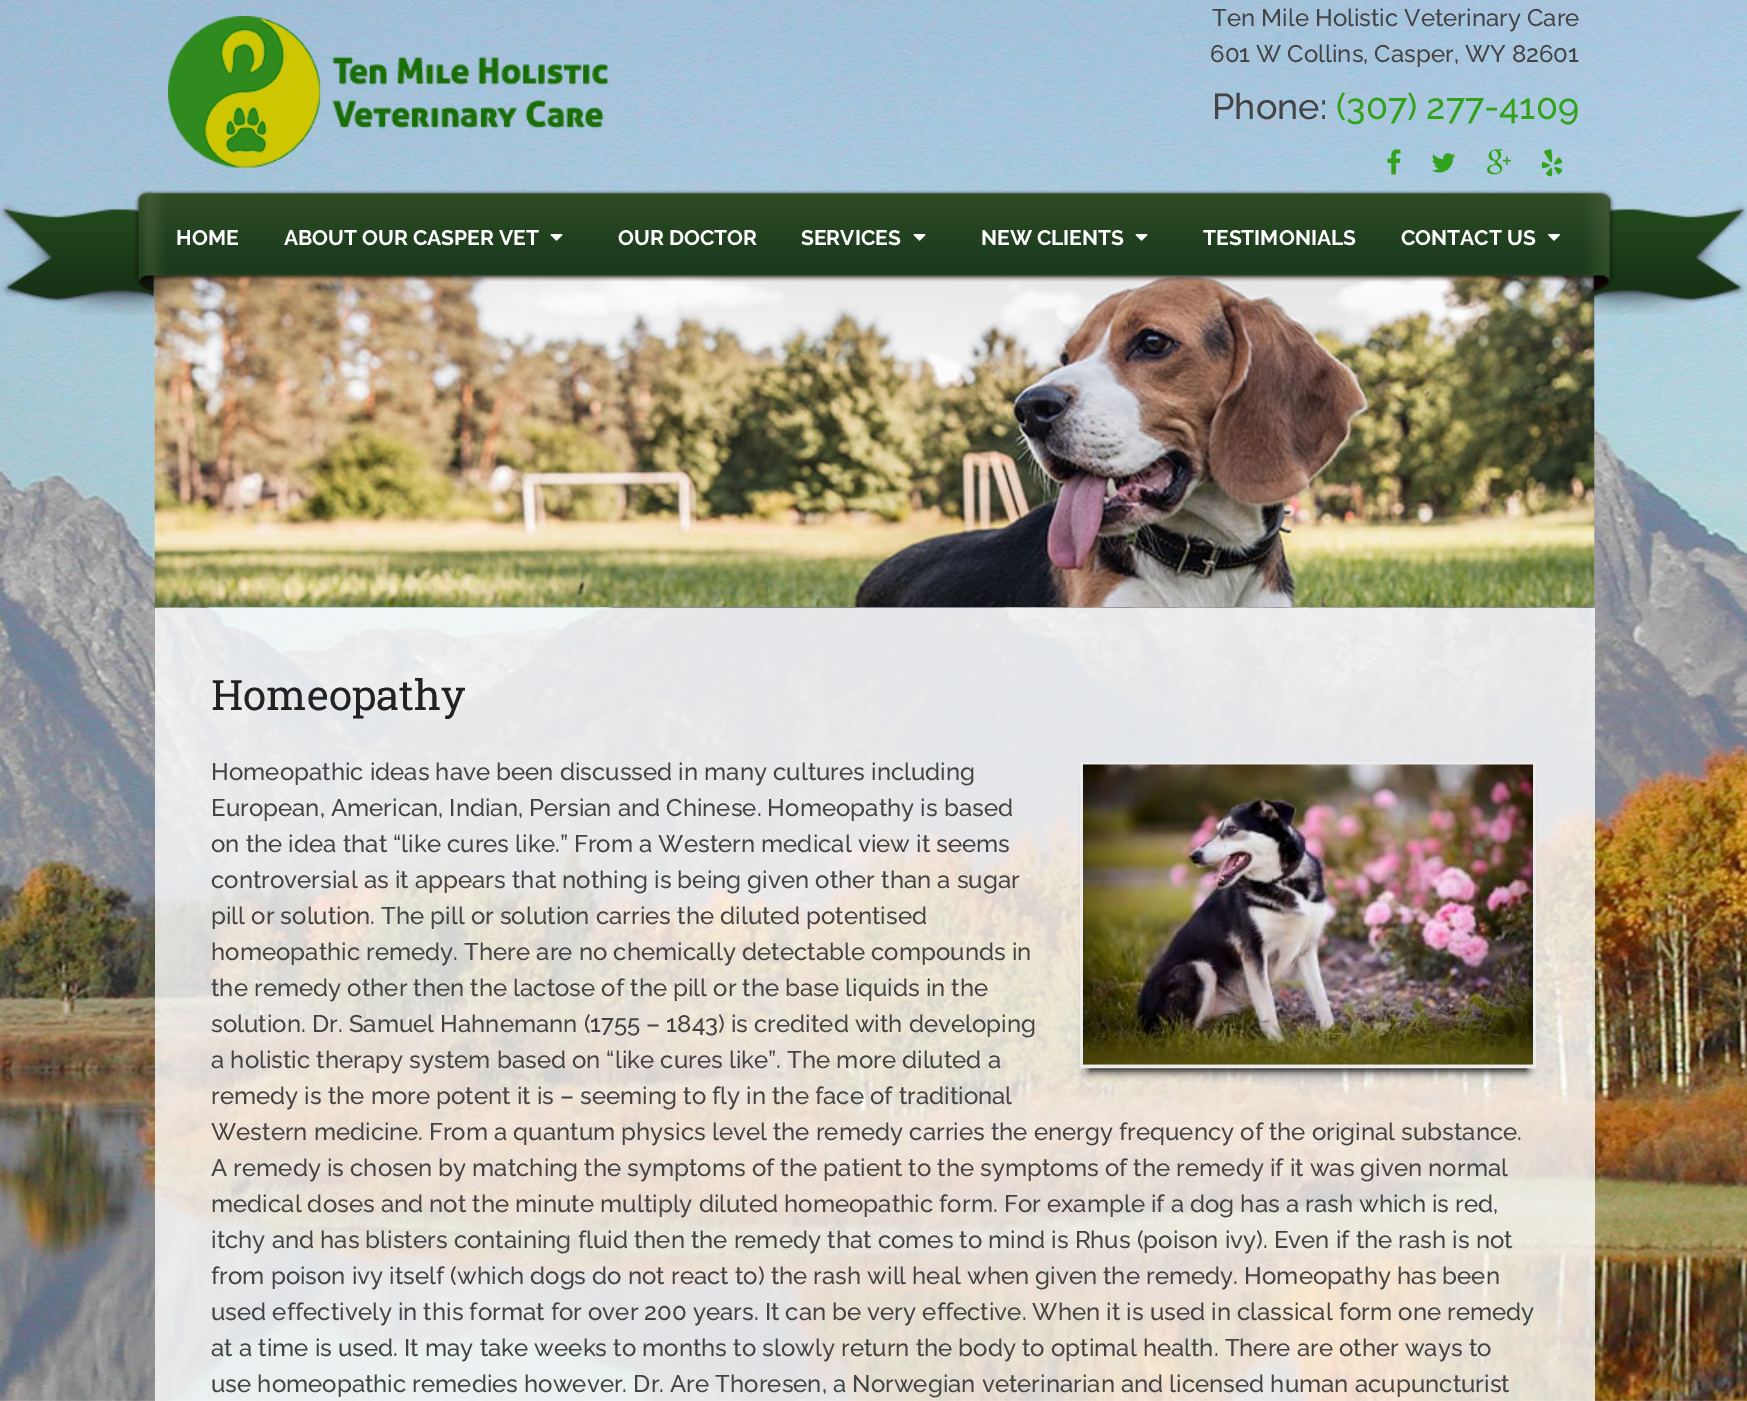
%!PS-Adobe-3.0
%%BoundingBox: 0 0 1747 1401
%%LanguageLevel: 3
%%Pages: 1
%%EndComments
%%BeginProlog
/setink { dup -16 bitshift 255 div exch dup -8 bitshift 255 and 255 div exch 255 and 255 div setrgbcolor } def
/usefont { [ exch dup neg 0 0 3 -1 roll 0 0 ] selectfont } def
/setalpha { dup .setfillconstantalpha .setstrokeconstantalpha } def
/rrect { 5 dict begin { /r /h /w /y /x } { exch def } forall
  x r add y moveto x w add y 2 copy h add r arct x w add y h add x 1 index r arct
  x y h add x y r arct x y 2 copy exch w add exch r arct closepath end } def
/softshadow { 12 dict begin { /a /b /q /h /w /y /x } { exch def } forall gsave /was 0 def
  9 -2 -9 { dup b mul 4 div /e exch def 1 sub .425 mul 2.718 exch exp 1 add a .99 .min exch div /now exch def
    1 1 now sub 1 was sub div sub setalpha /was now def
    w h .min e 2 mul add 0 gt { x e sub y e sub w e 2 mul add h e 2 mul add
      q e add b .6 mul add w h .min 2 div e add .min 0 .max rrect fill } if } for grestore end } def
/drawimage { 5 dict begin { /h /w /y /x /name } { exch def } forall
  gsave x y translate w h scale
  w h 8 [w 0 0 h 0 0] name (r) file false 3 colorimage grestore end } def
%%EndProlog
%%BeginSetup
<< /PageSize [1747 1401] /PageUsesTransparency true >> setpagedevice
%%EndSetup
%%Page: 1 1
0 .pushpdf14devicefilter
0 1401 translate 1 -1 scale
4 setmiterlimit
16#FFFFFF setink
0 0 1747 1401 rectfill
(img1.raw) 0 0 1747 1401 drawimage
(img2.raw) 168 16 441 152 drawimage
/Raleway-Medium 24 usefont
16#444444 setink
1212 26 moveto (Ten Mile Holistic Veterinary Care) show
1210 62 moveto (601 W Collins, Casper, WY 82601) show
/Raleway-Medium 36 usefont
1212 119 moveto (Phone:) show
16#32A21C setink
1336 119 moveto (\(307\) 277-4109) show
(img3.raw) 1387 149 14 26 drawimage
(img4.raw) 1431 153 25 20 drawimage
(img5.raw) 1487 149 24 26 drawimage
(img6.raw) 1541 149 22 28 drawimage
(img10.raw) 154 275 1441 332 drawimage
(img7.raw) 0 190 1747 125 drawimage
/Raleway-Bold 21 usefont
16#FFFFFF setink
176 245 moveto (HOME) show
284 245 moveto (ABOUT OUR CASPER VET) show
(img8.raw) 550 234 13 7 drawimage
618 245 moveto (OUR DOCTOR) show
801 245 moveto (SERVICES) show
(img8.raw) 913 234 13 7 drawimage
981 245 moveto (NEW CLIENTS) show
(img8.raw) 1135 234 13 7 drawimage
1203 245 moveto (TESTIMONIALS) show
1401 245 moveto (CONTACT US) show
(img9.raw) 1548 234 12 7 drawimage
0.8 setalpha
155 608 1440 793 rectfill
/RobotoSlab-Regular 42 usefont
1 setalpha
16#222222 setink
211 710 moveto (Homeopathy) show
/Raleway-Medium 24 usefont
16#444444 setink
211 780 moveto (Homeopathic ideas have been discussed in many cultures including) show
16#000000 setink
1089 783 438 288 0 4.5 1 softshadow
16#ECECEC setink
3 setlinewidth
1081.5 763.5 453 303 rectstroke
(img11.raw) 1083 764 450 301 drawimage
16#444444 setink
[
    [(European, American, Indian, Persian and Chinese. Homeopathy is based) 211 816]
    [(on the idea that “like cures like.” From a Western medical view it seems) 211 852]
    [(controversial as it appears that nothing is being given other than a sugar) 211 888]
    [(pill or solution. The pill or solution carries the diluted potentised) 211 924]
    [(homeopathic remedy. There are no chemically detectable compounds in) 211 960]
    [(the remedy other then the lactose of the pill or the base liquids in the) 211 996]
    [(solution. Dr. Samuel Hahnemann \(1755 – 1843\) is credited with developing) 211 1032]
    [(a holistic therapy system based on “like cures like”. The more diluted a) 211 1068]
    [(remedy is the more potent it is – seeming to fly in the face of traditional) 211 1104]
    [(Western medicine. From a quantum physics level the remedy carries the energy frequency of the original substance.) 211 1140]
    [(A remedy is chosen by matching the symptoms of the patient to the symptoms of the remedy if it was given normal) 211 1176]
    [(medical doses and not the minute multiply diluted homeopathic form. For example if a dog has a rash which is red,) 211 1212]
    [(itchy and has blisters containing fluid then the remedy that comes to mind is Rhus \(poison ivy\). Even if the rash is not) 211 1248]
    [(from poison ivy itself \(which dogs do not react to\) the rash will heal when given the remedy. Homeopathy has been) 211 1284]
    [(used effectively in this format for over 200 years. It can be very effective. When it is used in classical form one remedy) 211 1320]
    [(at a time is used. It may take weeks to months to slowly return the body to optimal health. There are other ways to) 211 1356]
    [(use homeopathic remedies however. Dr. Are Thoresen, a Norwegian veterinarian and licensed human acupuncturist) 211 1392]
] { aload pop moveto show } forall
.poppdf14devicefilter showpage
%%EOF
